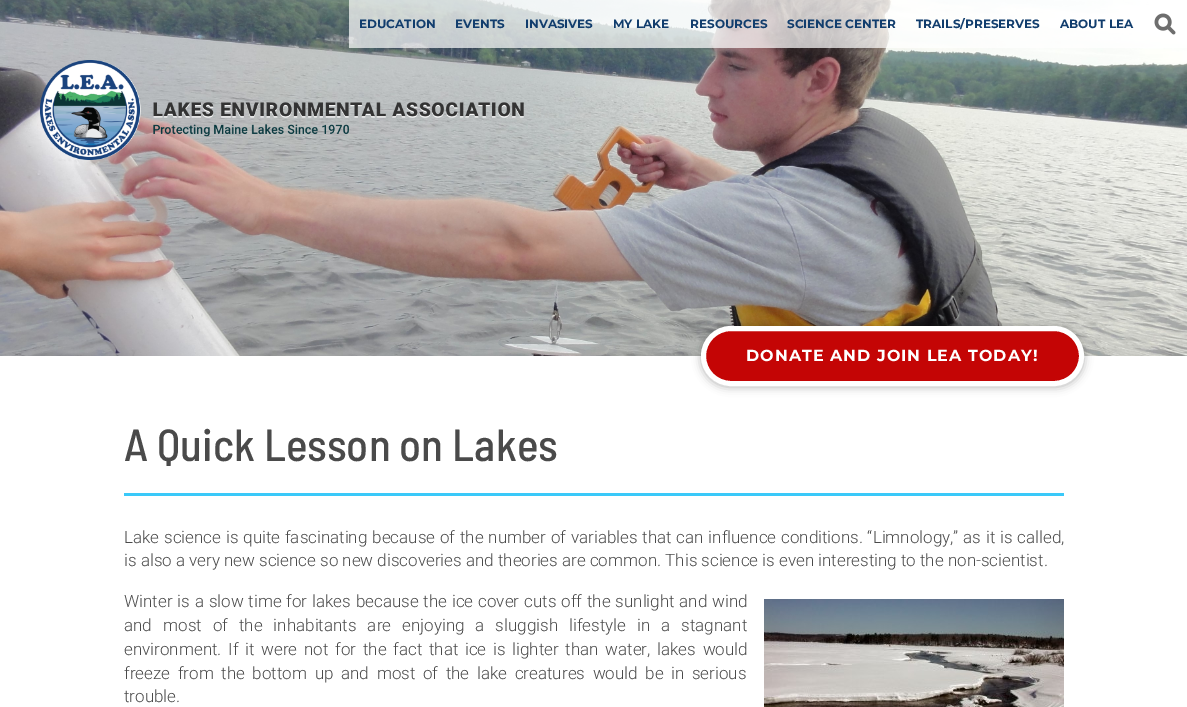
%!PS-Adobe-3.0
%%BoundingBox: 0 0 1187 707
%%LanguageLevel: 3
%%Pages: 1
%%EndComments
%%BeginProlog
/setink { dup -16 bitshift 255 div exch dup -8 bitshift 255 and 255 div exch 255 and 255 div setrgbcolor } def
/usefont { [ exch dup neg 0 0 3 -1 roll 0 0 ] selectfont } def
/setalpha { dup .setfillconstantalpha .setstrokeconstantalpha } def
/rrect { 5 dict begin { /r /h /w /y /x } { exch def } forall
  x r add y moveto x w add y 2 copy h add r arct x w add y h add x 1 index r arct
  x y h add x y r arct x y 2 copy exch w add exch r arct closepath end } def
/softshadow { 12 dict begin { /a /b /q /h /w /y /x } { exch def } forall gsave /was 0 def
  9 -2 -9 { dup b mul 4 div /e exch def 1 sub .425 mul 2.718 exch exp 1 add a .99 .min exch div /now exch def
    1 1 now sub 1 was sub div sub setalpha /was now def
    w h .min e 2 mul add 0 gt { x e sub y e sub w e 2 mul add h e 2 mul add
      q e add b .6 mul add w h .min 2 div e add .min 0 .max rrect fill } if } for grestore end } def
/drawimage { 5 dict begin { /h /w /y /x /name } { exch def } forall
  gsave x y translate w h scale
  w h 8 [w 0 0 h 0 0] name (r) file false 3 colorimage grestore end } def
%%EndProlog
%%BeginSetup
<< /PageSize [1187 707] /PageUsesTransparency true >> setpagedevice
%%EndSetup
%%Page: 1 1
0 .pushpdf14devicefilter
0 707 translate 1 -1 scale
4 setmiterlimit
16#FFFFFF setink
0 0 1187 707 rectfill
(img1.raw) 0 0 1187 356 drawimage
0.7 setalpha
349 0 838 48 rectfill
/Montserrat-Thin 12 usefont
1 setalpha
16#113D6D setink
[
    [(EDUCATION) 359 28]
    [(EVENTS) 455 28]
    [(INVASIVES) 525 28]
    [(MY LAKE) 613 28]
    [(RESOURCES) 690 28]
    [(SCIENCE CENTER) 787 28]
    [(TRAILS/PRESERVES) 916 28]
    [(ABOUT LEA) 1060 28]
] { aload pop moveto show } forall
(img2.raw) 1154 13 22 22 drawimage
(img3.raw) 40 60 484 100 drawimage
16#000000 setink
701 327 383 60 30 4.5 0.3 softshadow
16#C40505 setink
703.5 328.5 378 55 27.5 rrect gsave fill grestore
16#FFFFFF setink
5 setlinewidth
stroke
/Montserrat-Thin 16 usefont
746 361 moveto 1 0 (DONATE AND JOIN LEA TODAY!) ashow
16#3AC9F9 setink
124 493 940 3 rectfill
/BarlowSemiCondensed-Medium 45 usefont
16#4A4A4A setink
124 461 moveto (A Quick Lesson on Lakes) show
/Roboto-Light 17 usefont
124 543 moveto 0.7 0 32 (Lake science is quite fascinating because of the number of variables that can influence conditions. “Limnology,” as it is called,) widthshow
124 566 moveto (is also a very new science so new discoveries and theories are common. This science is even interesting to the non-scientist.) show
124 607 moveto 0.75 0 32 (Winter is a slow time for lakes because the ice cover cuts off the sunlight and wind) widthshow
(img4.raw) 764 599 300 108 drawimage
124 631 moveto 6.9 0 32 (and most of the inhabitants are enjoying a sluggish lifestyle in a stagnant) widthshow
124 655 moveto 2.6 0 32 (environment. If it were not for the fact that ice is lighter than water, lakes would) widthshow
124 679 moveto 3.5 0 32 (freeze from the bottom up and most of the lake creatures would be in serious) widthshow
124 702 moveto (trouble.) show
.poppdf14devicefilter showpage
%%EOF
